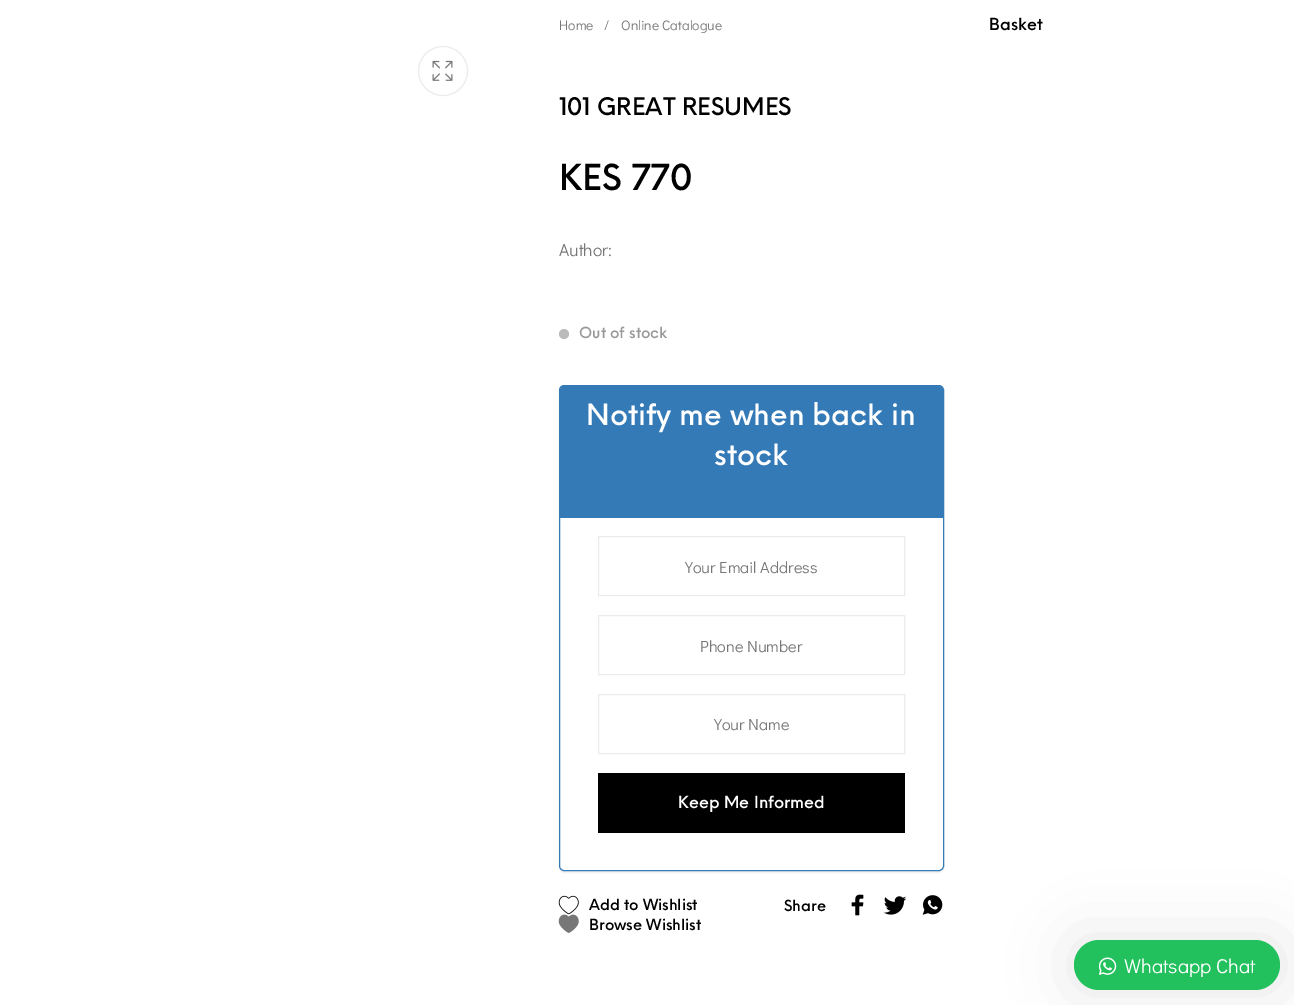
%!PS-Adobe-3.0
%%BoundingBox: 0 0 1294 1005
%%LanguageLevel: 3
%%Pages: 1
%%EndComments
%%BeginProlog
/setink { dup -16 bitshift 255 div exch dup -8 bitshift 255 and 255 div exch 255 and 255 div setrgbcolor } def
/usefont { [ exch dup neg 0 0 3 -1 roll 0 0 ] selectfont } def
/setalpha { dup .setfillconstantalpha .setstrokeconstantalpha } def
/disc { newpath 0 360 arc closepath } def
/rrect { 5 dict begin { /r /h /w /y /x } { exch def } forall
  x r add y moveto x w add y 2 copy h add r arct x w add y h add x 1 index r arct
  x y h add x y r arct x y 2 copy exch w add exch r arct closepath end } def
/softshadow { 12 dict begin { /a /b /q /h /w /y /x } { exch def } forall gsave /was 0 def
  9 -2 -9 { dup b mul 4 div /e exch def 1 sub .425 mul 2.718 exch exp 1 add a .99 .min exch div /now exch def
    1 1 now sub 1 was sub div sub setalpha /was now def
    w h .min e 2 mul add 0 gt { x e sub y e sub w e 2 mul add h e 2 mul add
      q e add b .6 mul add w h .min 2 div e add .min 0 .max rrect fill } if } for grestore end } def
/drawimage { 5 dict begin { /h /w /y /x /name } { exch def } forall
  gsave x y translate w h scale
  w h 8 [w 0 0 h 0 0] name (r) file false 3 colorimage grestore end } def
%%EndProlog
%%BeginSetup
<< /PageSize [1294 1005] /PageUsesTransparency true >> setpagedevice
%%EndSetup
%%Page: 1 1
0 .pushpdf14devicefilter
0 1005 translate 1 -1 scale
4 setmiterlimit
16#FFFFFF setink
0 0 1294 1005 rectfill
16#EBEBEB setink
443 71 24.5 disc stroke
(img1.raw) 432 60 21 21 drawimage
/DidactGothic-Regular 13.75 usefont
16#777777 setink
[
    [(Home) 559 30]
    [(/) 604 30]
    [(Online Catalogue) 621 30]
] { aload pop moveto show } forall
/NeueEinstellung-Medium 23.75 usefont
16#000000 setink
559 115 moveto (101 GREAT RESUMES) show
/NeueEinstellung-Medium 35 usefont
559 190 moveto (KES 770) show
/DidactGothic-Regular 17.5 usefont
16#777777 setink
559 256 moveto (Author:) show
16#BBBBBB setink
564 334 5 disc fill
/NeueEinstellung-Medium 15 usefont
16#999999 setink
579 338 moveto (Out of stock) show
gsave
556 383 moveto 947 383 lineto 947 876 lineto 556 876 lineto closepath 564 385 moveto 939 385 lineto 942 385 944 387 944 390 curveto 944 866 lineto 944 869 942 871 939 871 curveto 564 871 lineto 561 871 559 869 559 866 curveto 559 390 lineto 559 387 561 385 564 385 curveto closepath eoclip newpath
16#000000 setink
559 386 385 487 5 0.5 0.05 softshadow
grestore
16#337AB7 setink
559.5 385.5 384 485 4.5 rrect stroke
564 386 moveto 939 386 lineto 941 386 943 388 943 390 curveto 943 518 lineto 560 518 lineto 560 390 lineto 560 388 562 386 564 386 curveto closepath fill
/NeueEinstellung-Medium 28.75 usefont
16#FFFFFF setink
586 425 moveto (Notify me when back in) show
714 465 moveto (stock) show
16#EBEBEB setink
598.5 536.5 306 59 rectstroke
/DidactGothic-Regular 16.25 usefont
16#777777 setink
685 573 moveto (Your Email Address) show
16#EBEBEB setink
598.5 615.5 306 59 rectstroke
16#777777 setink
700 652 moveto (Phone Number) show
16#EBEBEB setink
598.5 694.5 306 59 rectstroke
16#777777 setink
714 730 moveto (Your Name) show
16#000000 setink
598 773 307 60 rectfill
/NeueEinstellung-Medium 16.25 usefont
16#FFFFFF setink
678 808 moveto (Keep Me Informed) show
(img2.raw) 558 895 21 20 drawimage
/NeueEinstellung-Medium 15 usefont
16#000000 setink
589 910 moveto (Add to Wishlist) show
(img3.raw) 558 914 21 19 drawimage
589 930 moveto (Browse Wishlist) show
784 911 moveto (Share) show
(img4.raw) 851 894 13 22 drawimage
(img5.raw) 884 896 22 19 drawimage
(img6.raw) 922 895 21 20 drawimage
/NeueEinstellung-Medium 16.25 usefont
989 30 moveto (Basket) show
1074 940 206 50 25 31 0.1 softshadow
16#22C15E setink
1074 940 206 50 25 rrect fill
(img7.raw) 1099 957 18 18 drawimage
/DidactGothic-Regular 20 usefont
16#FFFFFF setink
1124 973 moveto (Whatsapp Chat) show
.poppdf14devicefilter showpage
%%EOF
